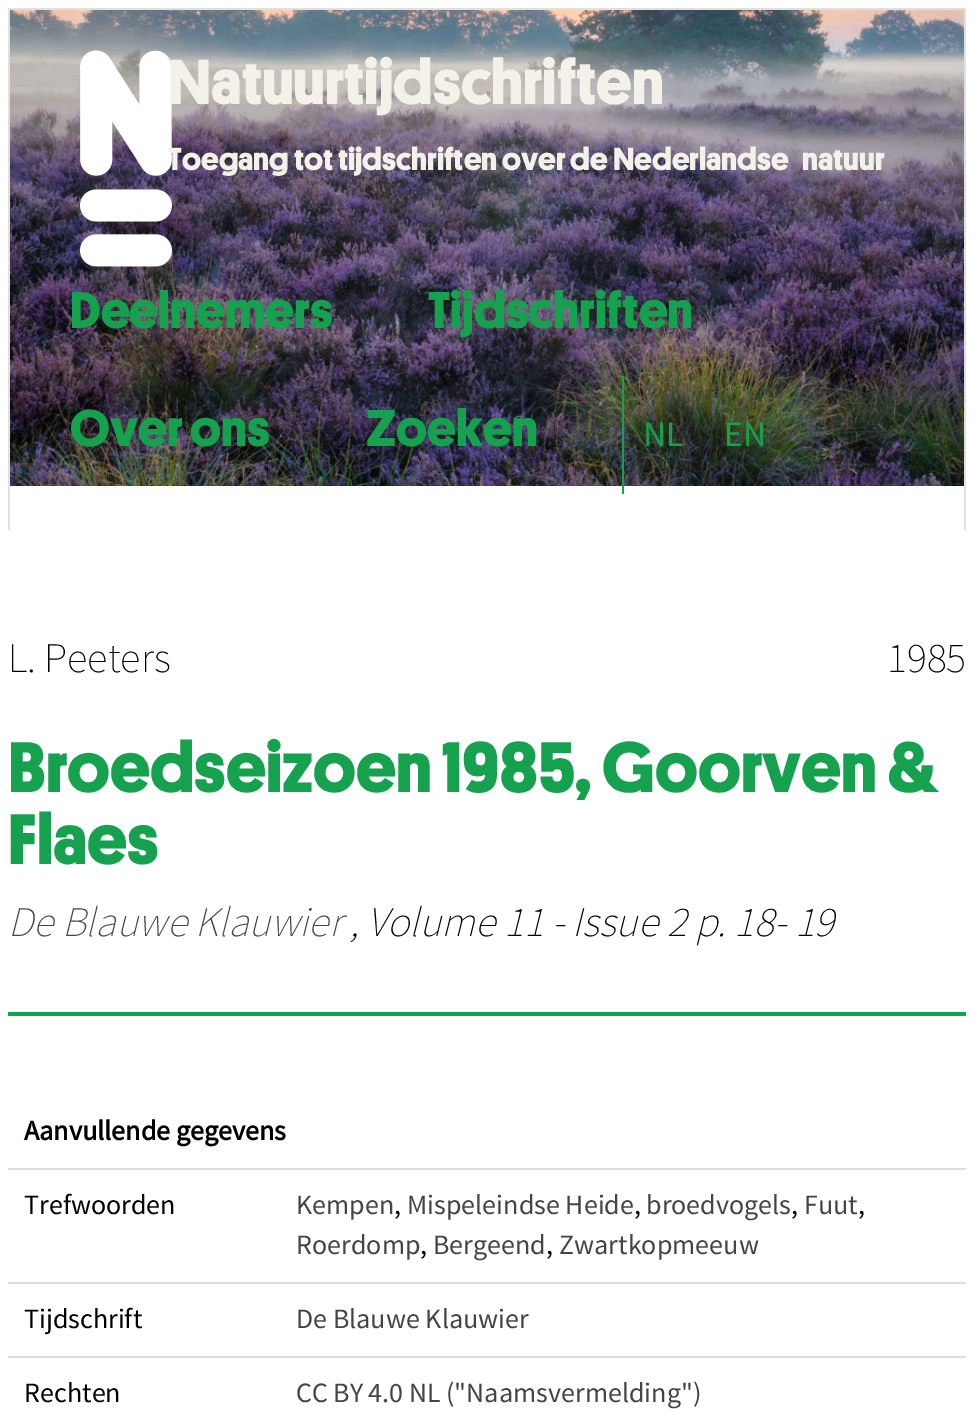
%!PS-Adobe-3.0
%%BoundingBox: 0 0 974 1410
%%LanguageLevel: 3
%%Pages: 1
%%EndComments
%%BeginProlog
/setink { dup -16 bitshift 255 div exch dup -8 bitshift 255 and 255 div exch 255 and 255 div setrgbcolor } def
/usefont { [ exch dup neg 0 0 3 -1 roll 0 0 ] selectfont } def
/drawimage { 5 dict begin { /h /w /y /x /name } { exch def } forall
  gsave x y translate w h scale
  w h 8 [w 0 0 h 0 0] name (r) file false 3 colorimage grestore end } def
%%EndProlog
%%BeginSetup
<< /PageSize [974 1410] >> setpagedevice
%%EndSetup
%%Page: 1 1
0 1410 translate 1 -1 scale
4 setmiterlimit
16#FFFFFF setink
0 0 974 1410 rectfill
(img1.raw) 10 10 954 476 drawimage
(img2.raw) 80 50 92 217 drawimage
/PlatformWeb-Bold 64 usefont
16#F4F1E9 setink
168 104 moveto (Natuurtijdschriften) show
/PlatformWeb-Bold 32 usefont
168 170 moveto (Toegang tot tijdschriften over de Nederlandse) show
802 170 moveto (natuur) show
[
    [8 8 958 2 16#E0E0E0]
    [964 8 2 522 16#E0E0E0]
    [8 8 2 522 16#E0E0E0]
] { aload pop setink rectfill } forall
/PlatformWeb-Bold 52 usefont
16#16A14F setink
[
    [(Deelnemers) 70 328]
    [(Tijdschriften) 428 328]
    [(Over ons) 70 446]
    [(Zoeken) 366 446]
] { aload pop moveto show } forall
622 376 2 118 rectfill
/SourceSansPro-Regular 36 usefont
643 446 moveto (NL) show
724 446 moveto (EN) show
8 1012 958 4 rectfill
/SourceSansPro-ExtraLight 42 usefont
16#000000 setink
8 672 moveto (L. Peeters) show
887 672 moveto (1985) show
/PlatformWeb-Bold 72 usefont
16#16A14F setink
8 792 moveto (Broedseizoen 1985, Goorven &) show
8 864 moveto (Flaes) show
/SourceSansPro-ExtraLightItalic 42 usefont
16#444444 setink
8 936 moveto (De Blauwe Klauwier) show
16#000000 setink
350 936 moveto (, Volume 11 - Issue 2 p. 18- 19) show
/SourceSansPro-Bold 28 usefont
24 1140 moveto (Aanvullende gegevens) show
/SourceSansPro-Regular 28 usefont
24 1214 moveto (Trefwoorden) show
16#DDDDDD setink
8 1168 958 2 rectfill
16#444444 setink
296 1214 moveto (Kempen) show
16#000000 setink
394 1214 moveto (,) show
16#444444 setink
407 1214 moveto (Mispeleindse Heide) show
16#000000 setink
634 1214 moveto (,) show
16#444444 setink
646 1214 moveto (broedvogels) show
16#000000 setink
791 1214 moveto (,) show
16#444444 setink
804 1214 moveto (Fuut) show
16#000000 setink
858 1214 moveto (,) show
16#444444 setink
296 1254 moveto (Roerdomp) show
16#000000 setink
420 1254 moveto (,) show
16#444444 setink
433 1254 moveto (Bergeend) show
16#000000 setink
546 1254 moveto (,) show
16#444444 setink
559 1254 moveto (Zwartkopmeeuw) show
16#000000 setink
24 1328 moveto (Tijdschrift) show
16#DDDDDD setink
8 1282 958 2 rectfill
16#444444 setink
296 1328 moveto (De Blauwe Klauwier) show
16#000000 setink
24 1402 moveto (Rechten) show
16#DDDDDD setink
8 1356 958 2 rectfill
16#444444 setink
296 1402 moveto (CC BY 4.0 NL \("Naamsvermelding"\)) show
showpage
%%EOF
